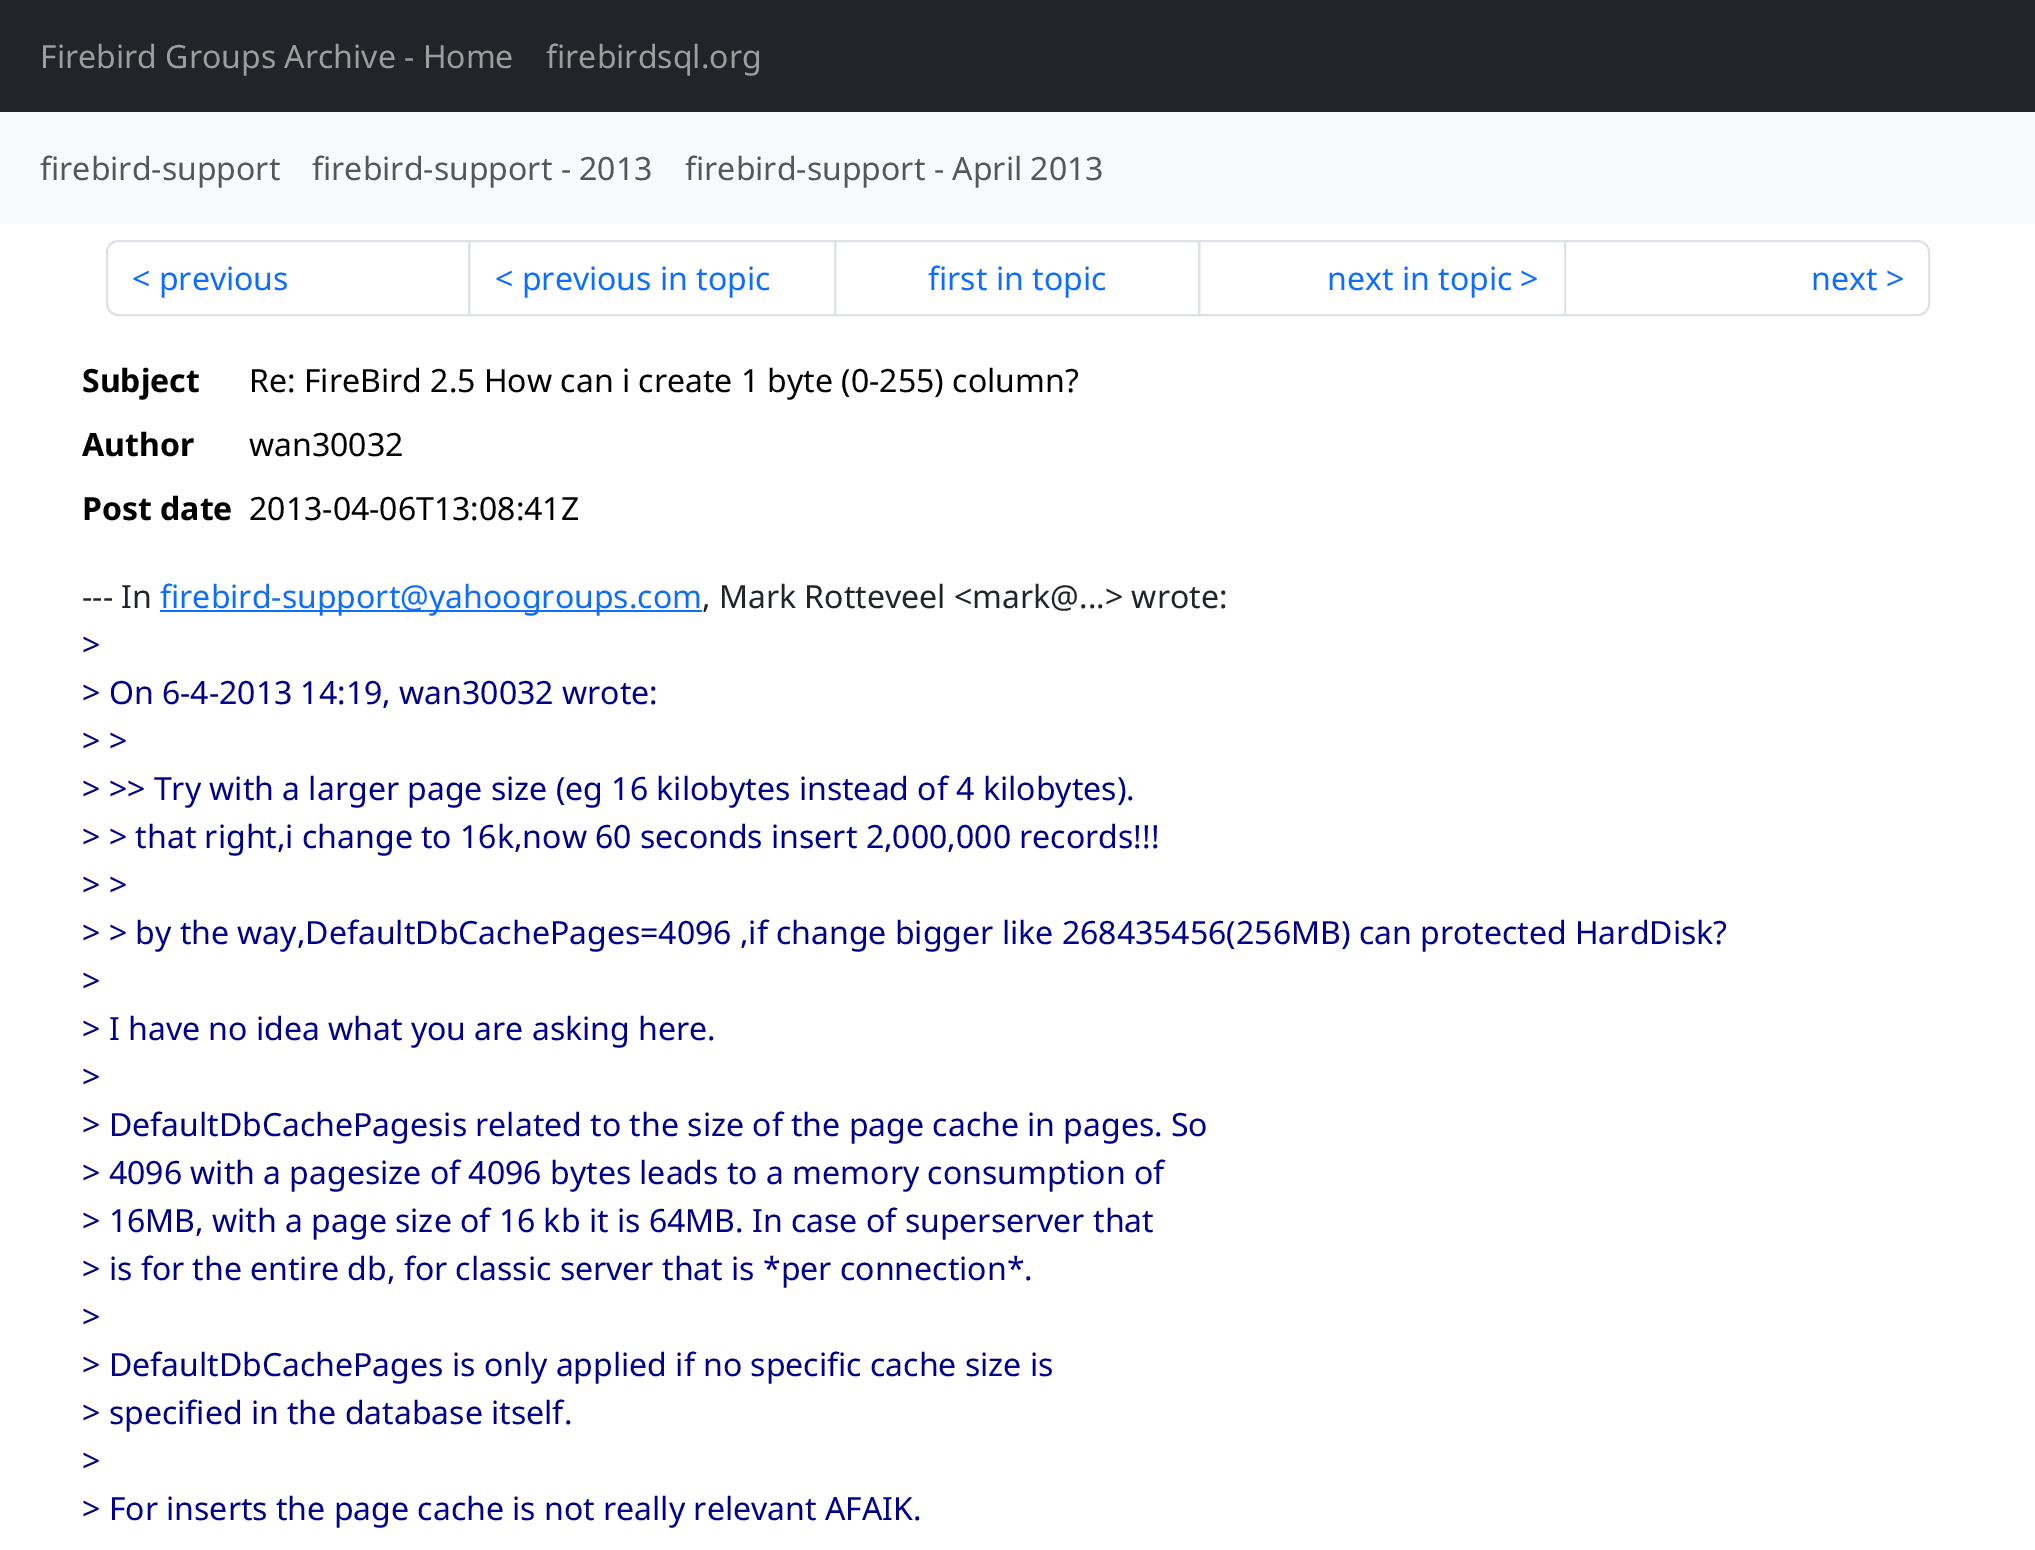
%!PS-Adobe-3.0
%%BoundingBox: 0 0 2035 1550
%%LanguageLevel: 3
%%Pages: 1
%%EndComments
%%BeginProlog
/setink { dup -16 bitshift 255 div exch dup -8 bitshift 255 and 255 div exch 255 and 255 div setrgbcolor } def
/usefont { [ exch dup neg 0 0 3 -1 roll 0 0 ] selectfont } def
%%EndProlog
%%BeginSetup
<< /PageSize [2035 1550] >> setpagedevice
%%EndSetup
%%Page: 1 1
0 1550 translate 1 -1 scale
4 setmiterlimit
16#FFFFFF setink
0 0 2035 1550 rectfill
16#212529 setink
0 0 2035 112 rectfill
/NotoSans-Regular 32 usefont
16#9B9D9F setink
40 68 moveto (Firebird Groups Archive - Home) show
546 68 moveto (firebirdsql.org) show
16#F8F9FA setink
0 112 2035 112 rectfill
16#575758 setink
[
    [(firebird-support) 40 180]
    [(firebird-support - 2013) 312 180]
    [(firebird-support - April 2013) 685 180]
] { aload pop moveto show } forall
16#DEE2E6 setink
2 setlinewidth
118 241 moveto 469 241 lineto 469 315 lineto 118 315 lineto 112 315 107 310 107 304 curveto 107 252 lineto 107 246 112 241 118 241 curveto closepath stroke
16#0D6EFD setink
132 290 moveto (< previous) show
16#DEE2E6 setink
469 241 366 74 rectstroke
16#0D6EFD setink
495 290 moveto (< previous in topic) show
16#DEE2E6 setink
835 241 364 74 rectstroke
16#0D6EFD setink
928 290 moveto (first in topic) show
16#DEE2E6 setink
1199 241 366 74 rectstroke
16#0D6EFD setink
1327 290 moveto (next in topic >) show
16#FFFFFF setink
1565 241 moveto 1918 241 lineto 1924 241 1929 246 1929 252 curveto 1929 304 lineto 1929 310 1924 315 1918 315 curveto 1565 315 lineto closepath gsave fill grestore
16#DEE2E6 setink
stroke
16#0D6EFD setink
1811 290 moveto (next >) show
/NotoSans-Bold 32 usefont
16#000000 setink
82 392 moveto (Subject) show
/NotoSans-Regular 32 usefont
249 392 moveto (Re: FireBird 2.5 How can i create 1 byte \(0-255\) column?) show
/NotoSans-Bold 32 usefont
82 456 moveto (Author) show
/NotoSans-Regular 32 usefont
249 456 moveto (wan30032) show
/NotoSans-Bold 32 usefont
82 520 moveto (Post date) show
/NotoSans-Regular 32 usefont
249 520 moveto (2013-04-06T13:08:41Z) show
16#212529 setink
82 608 moveto (--- In) show
16#0D6EFD setink
160 610 542 2 rectfill
160 608 moveto (firebird-support@yahoogroups.com) show
16#212529 setink
702 608 moveto (, Mark Rotteveel <mark@...> wrote:) show
16#00008B setink
[
    [(>) 82 656]
    [(> On 6-4-2013 14:19, wan30032 wrote:) 82 704]
    [(> >) 82 752]
    [(> >> Try with a larger page size \(eg 16 kilobytes instead of 4 kilobytes\).) 82 800]
    [(> > that right,i change to 16k,now 60 seconds insert 2,000,000 records!!!) 82 848]
    [(> >) 82 896]
    [(> > by the way,DefaultDbCachePages=4096 ,if change bigger like 268435456\(256MB\) can protected HardDisk?) 82 944]
    [(>) 82 992]
    [(> I have no idea what you are asking here.) 82 1040]
    [(>) 82 1088]
    [(> DefaultDbCachePagesis related to the size of the page cache in pages. So) 82 1136]
    [(> 4096 with a pagesize of 4096 bytes leads to a memory consumption of) 82 1184]
    [(> 16MB, with a page size of 16 kb it is 64MB. In case of superserver that) 82 1232]
    [(> is for the entire db, for classic server that is *per connection*.) 82 1280]
    [(>) 82 1328]
    [(> DefaultDbCachePages is only applied if no specific cache size is) 82 1376]
    [(> specified in the database itself.) 82 1424]
    [(>) 82 1472]
    [(> For inserts the page cache is not really relevant AFAIK.) 82 1520]
] { aload pop moveto show } forall
showpage
%%EOF
